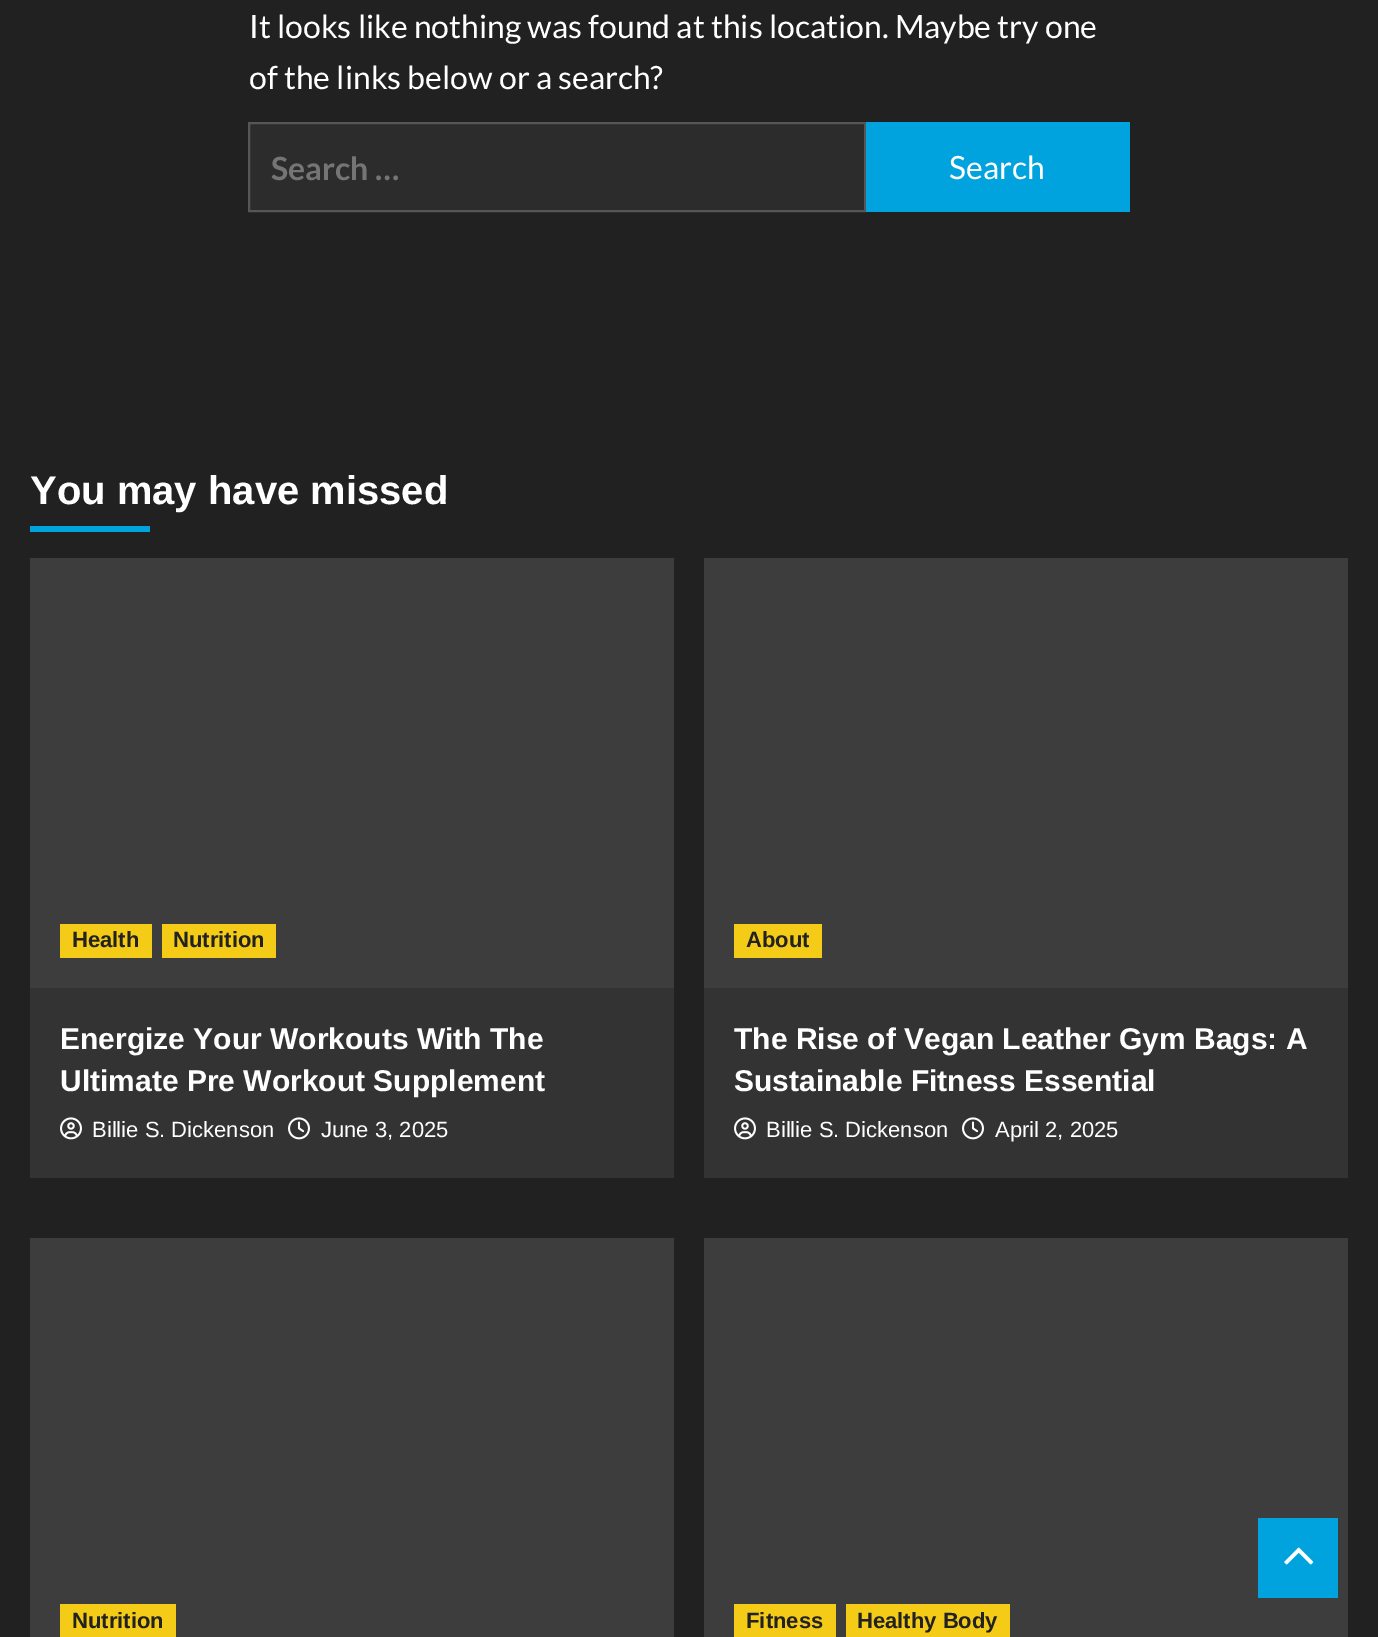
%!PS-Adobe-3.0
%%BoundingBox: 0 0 1378 1637
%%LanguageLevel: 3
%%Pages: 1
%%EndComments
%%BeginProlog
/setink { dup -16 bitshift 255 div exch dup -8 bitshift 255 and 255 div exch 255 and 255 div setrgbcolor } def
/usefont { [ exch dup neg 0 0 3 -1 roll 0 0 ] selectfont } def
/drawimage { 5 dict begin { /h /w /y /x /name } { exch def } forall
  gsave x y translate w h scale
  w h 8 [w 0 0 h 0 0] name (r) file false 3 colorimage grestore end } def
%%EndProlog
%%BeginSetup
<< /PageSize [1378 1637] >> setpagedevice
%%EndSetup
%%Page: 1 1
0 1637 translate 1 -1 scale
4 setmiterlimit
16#212121 setink
0 0 1378 1637 rectfill
/Lato-Regular 32 usefont
16#FFFFFF setink
249 38 moveto (It looks like nothing was found at this location. Maybe try one) show
249 89 moveto (of the links below or a search?) show
16#2C2C2C setink
249 123 moveto 865 123 lineto 865 211 lineto 249 211 lineto closepath gsave fill grestore
16#565656 setink
2 setlinewidth
stroke
/Lato-Bold 32 usefont
16#757575 setink
271 180 moveto (Search …) show
16#00A3DD setink
866 122 264 90 rectfill
/Lato-Regular 32 usefont
16#FFFFFF setink
949 179 moveto (Search) show
/LiberationSans-Bold 40 usefont
30 504 moveto (You may have missed) show
[
    [30 526 120 6 16#00A3DD]
    [30 988 644 190 16#333333]
    [30 558 644 430 16#3D3D3D]
    [60 924 92 34 16#F4CC17]
] { aload pop setink rectfill } forall
/LiberationSans-Bold 22 usefont
16#222222 setink
72 947 moveto (Health) show
16#F4CC17 setink
162 924 114 34 rectfill
16#222222 setink
173 947 moveto (Nutrition) show
/LiberationSans-Bold 30 usefont
16#FFFFFF setink
60 1049 moveto (Energize Your Workouts With The) show
60 1091 moveto (Ultimate Pre Workout Supplement) show
(img1.raw) 60 1117 22 23 drawimage
/LiberationSans-Regular 22 usefont
92 1137 moveto (Billie S. Dickenson) show
(img2.raw) 288 1117 22 23 drawimage
321 1137 moveto (June 3, 2025) show
[
    [704 988 644 190 16#333333]
    [704 558 644 430 16#3D3D3D]
    [734 924 88 34 16#F4CC17]
] { aload pop setink rectfill } forall
/LiberationSans-Bold 22 usefont
16#222222 setink
746 947 moveto (About) show
/LiberationSans-Bold 30 usefont
16#FFFFFF setink
734 1049 moveto (The Rise of Vegan Leather Gym Bags: A) show
734 1091 moveto (Sustainable Fitness Essential) show
(img1.raw) 734 1117 22 23 drawimage
/LiberationSans-Regular 22 usefont
766 1137 moveto (Billie S. Dickenson) show
(img2.raw) 962 1117 22 23 drawimage
995 1137 moveto (April 2, 2025) show
16#3D3D3D setink
30 1238 644 399 rectfill
16#F4CC17 setink
60 1604 116 33 rectfill
/LiberationSans-Bold 22 usefont
16#222222 setink
72 1628 moveto (Nutrition) show
16#3D3D3D setink
704 1238 644 399 rectfill
16#F4CC17 setink
734 1604 102 33 rectfill
16#222222 setink
746 1628 moveto (Fitness) show
16#F4CC17 setink
846 1604 164 33 rectfill
16#222222 setink
857 1628 moveto (Healthy Body) show
16#00A3DD setink
1258 1518 80 80 rectfill
(img3.raw) 1284 1547 30 18 drawimage
showpage
%%EOF
